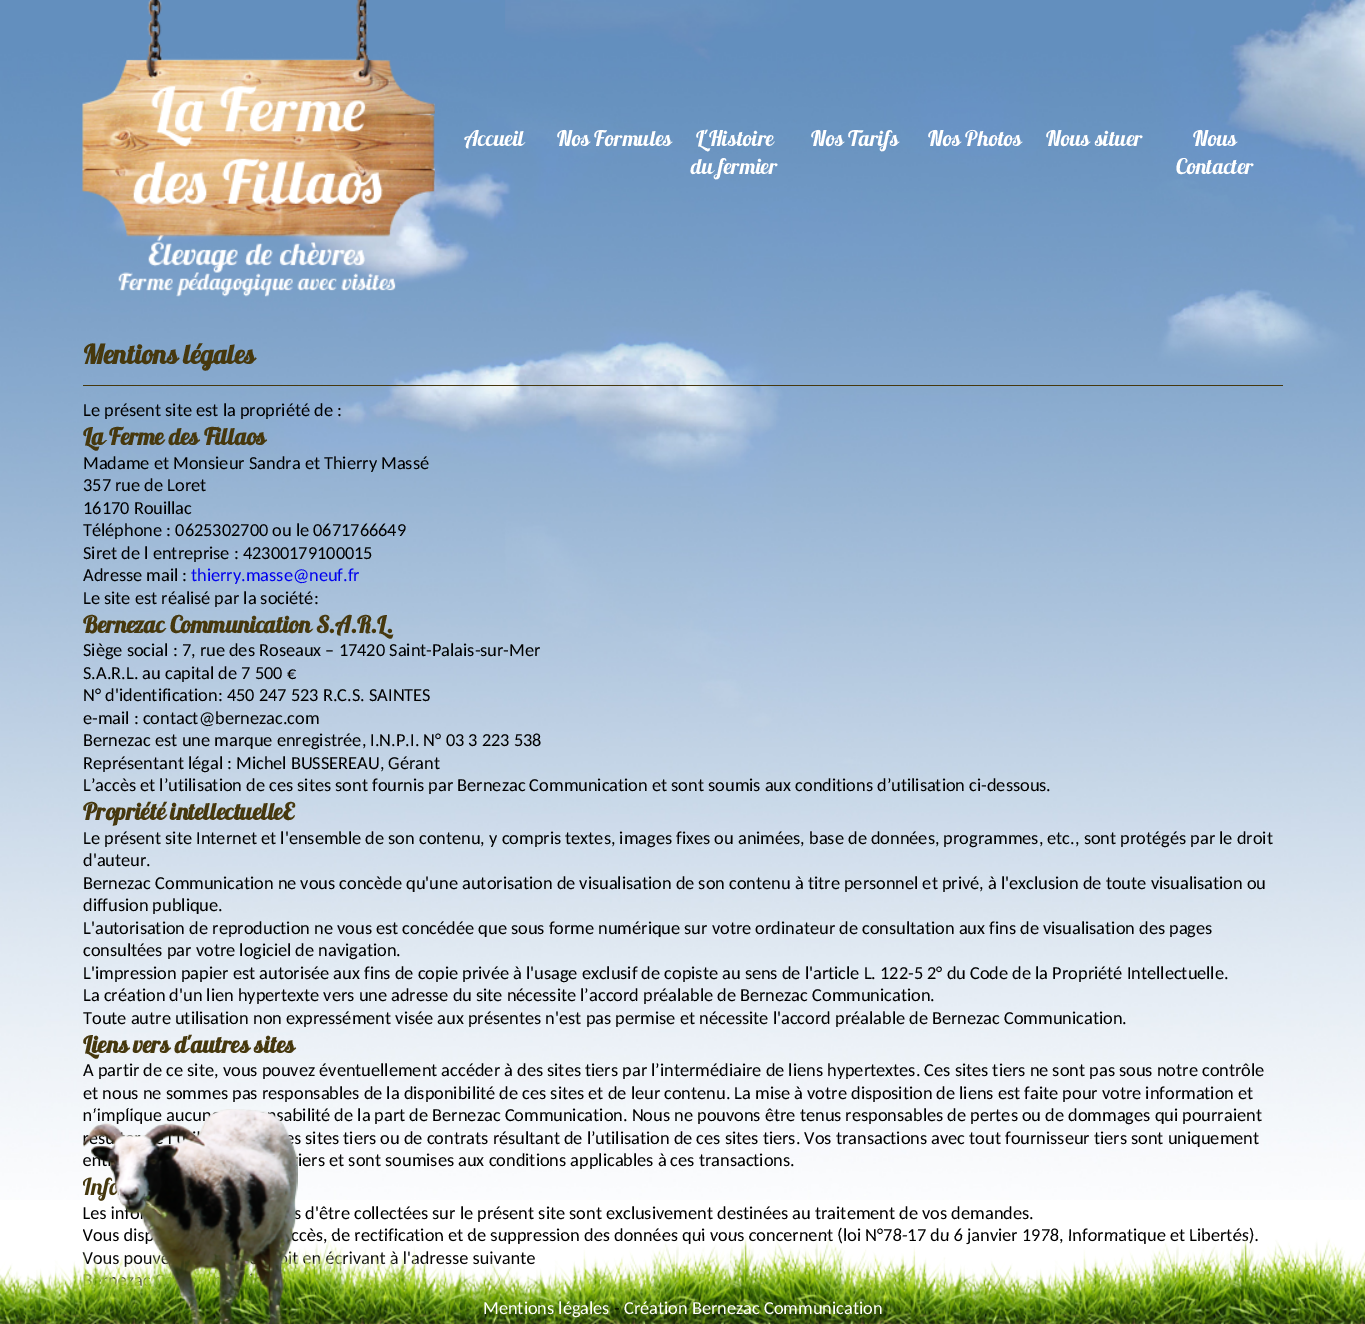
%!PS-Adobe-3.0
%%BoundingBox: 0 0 1365 1324
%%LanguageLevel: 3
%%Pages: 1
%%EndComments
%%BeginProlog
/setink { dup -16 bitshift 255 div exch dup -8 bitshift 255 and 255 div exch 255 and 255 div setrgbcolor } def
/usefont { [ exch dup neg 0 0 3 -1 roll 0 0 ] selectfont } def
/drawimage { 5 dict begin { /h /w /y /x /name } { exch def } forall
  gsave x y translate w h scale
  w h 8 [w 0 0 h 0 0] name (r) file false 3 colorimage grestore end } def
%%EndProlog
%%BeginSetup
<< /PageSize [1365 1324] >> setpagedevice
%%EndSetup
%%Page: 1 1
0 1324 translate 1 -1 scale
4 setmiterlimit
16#FFFFFF setink
0 0 1365 1324 rectfill
(img1.raw) 0 0 1365 1200 drawimage
(img2.raw) 82 0 353 297 drawimage
/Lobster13-Regular 21.5 usefont
[
    [(Accueil) 464 146]
    [(Nos Formules) 557 146]
    [(L'Histoire) 696 146]
    [(du fermier) 691 174]
    [(Nos Tarifs) 811 146]
    [(Nos Photos) 928 146]
    [(Nous situer) 1046 146]
    [(Nous) 1193 146]
    [(Contacter) 1176 174]
] { aload pop moveto show } forall
/Lobster13-Bold 26.75 usefont
16#46380E setink
83 364 moveto (Mentions légales) show
83 385 1200 1 rectfill
/Carlito-Regular 18.33 usefont
16#000000 setink
83 416 moveto (Le présent site est la propriété de :) show
/Lobster13-Bold 23.4 usefont
16#46380E setink
83 445 moveto (La Ferme des Fillaos) show
/Carlito-Regular 18.33 usefont
16#000000 setink
[
    [(Madame et Monsieur Sandra et Thierry Massé) 83 469]
    [(357 rue de Loret) 83 491]
    [(16170 Rouillac) 83 514]
    [(Téléphone : 0625302700 ou le 0671766649) 83 536]
    [(Siret de l entreprise : 42300179100015) 83 559]
    [(Adresse mail :) 83 581]
] { aload pop moveto show } forall
16#0000EE setink
191 581 moveto (thierry.masse@neuf.fr) show
16#000000 setink
83 604 moveto (Le site est réalisé par la société:) show
/Lobster13-Bold 23.4 usefont
16#46380E setink
83 633 moveto (Bernezac Communication S.A.R.L.) show
/Carlito-Regular 18.33 usefont
16#000000 setink
[
    [(Siège social : 7, rue des Roseaux – 17420 Saint-Palais-sur-Mer) 83 656]
    [(S.A.R.L. au capital de 7 500 €) 83 679]
    [(N° d'identification: 450 247 523 R.C.S. SAINTES) 83 701]
    [(e-mail : contact@bernezac.com) 83 724]
    [(Bernezac est une marque enregistrée, I.N.P.I. N° 03 3 223 538) 83 746]
    [(Représentant légal : Michel BUSSEREAU, Gérant) 83 769]
    [(L’accès et l’utilisation de ces sites sont fournis par Bernezac Communication et sont soumis aux conditions d’utilisation ci-dessous.) 83 791]
] { aload pop moveto show } forall
/Lobster13-Bold 23.4 usefont
16#46380E setink
83 820 moveto (Propriété intellectuelleE) show
/Carlito-Regular 18.33 usefont
16#000000 setink
[
    [(Le présent site Internet et l'ensemble de son contenu, y compris textes, images fixes ou animées, base de données, programmes, etc., sont protégés par le droit) 83 844]
    [(d'auteur.) 83 866]
    [(Bernezac Communication ne vous concède qu'une autorisation de visualisation de son contenu à titre personnel et privé, à l'exclusion de toute visualisation ou) 83 889]
    [(diffusion publique.) 83 911]
    [(L'autorisation de reproduction ne vous est concédée que sous forme numérique sur votre ordinateur de consultation aux fins de visualisation des pages) 83 934]
    [(consultées par votre logiciel de navigation.) 83 956]
    [(L'impression papier est autorisée aux fins de copie privée à l'usage exclusif de copiste au sens de l'article L. 122-5 2° du Code de la Propriété Intellectuelle.) 83 979]
    [(La création d'un lien hypertexte vers une adresse du site nécessite l’accord préalable de Bernezac Communication.) 83 1001]
    [(Toute autre utilisation non expressément visée aux présentes n'est pas permise et nécessite l'accord préalable de Bernezac Communication.) 83 1024]
] { aload pop moveto show } forall
/Lobster13-Bold 23.4 usefont
16#46380E setink
83 1053 moveto (Liens vers d'autres sites) show
/Carlito-Regular 18.33 usefont
16#000000 setink
[
    [(A partir de ce site, vous pouvez éventuellement accéder à des sites tiers par l’intermédiaire de liens hypertextes. Ces sites tiers ne sont pas sous notre contrôle) 83 1076]
    [(et nous ne sommes pas responsables de la disponibilité de ces sites et de leur contenu. La mise à votre disposition de liens est faite pour votre information et) 83 1099]
    [(n’implique aucu) 83 1121]
    [(abilité de la part de Bernezac Communication. Nous ne pouvons être tenus responsables de pertes ou de dommages qui pourraient) 284 1121]
    [(s) 98 1144]
    [(s sites tiers ou de contrats résultant de l’utilisation de ces sites tiers. Vos transactions avec tout fournisseur tiers sont uniquement) 294 1144]
    [(en) 83 1166]
    [(iers et sont soumises aux conditions applicables à ces transactions.) 298 1166]
] { aload pop moveto show } forall
/Lobster13-Bold 23.4 usefont
16#46380E setink
83 1195 moveto (Info) show
/Carlito-Regular 18.33 usefont
16#000000 setink
[
    [(Les in) 83 1219]
    [(s d'être collectées sur le présent site sont exclusivement destinées au traitement de vos demandes.) 294 1219]
    [(Vous disp) 83 1241]
    [(ccès, de rectification et de suppression des données qui vous concernent \(loi N°78-17 du 6 janvier 1978, Informatique et Libertés\).) 291 1241]
    [(Vous pouv) 83 1264]
    [(i) 288 1264]
    [(n écrivant à l'adresse suivante) 312 1264]
] { aload pop moveto show } forall
(img3.raw) 0 1236 1365 88 drawimage
(img4.raw) 83 1109 215 215 drawimage
16#FFFFFF setink
483 1314 moveto (Mentions légales) show
16#000000 setink
614 1314 moveto (-) show
16#FFFFFF setink
624 1314 moveto (Création Bernezac Communication) show
showpage
%%EOF
